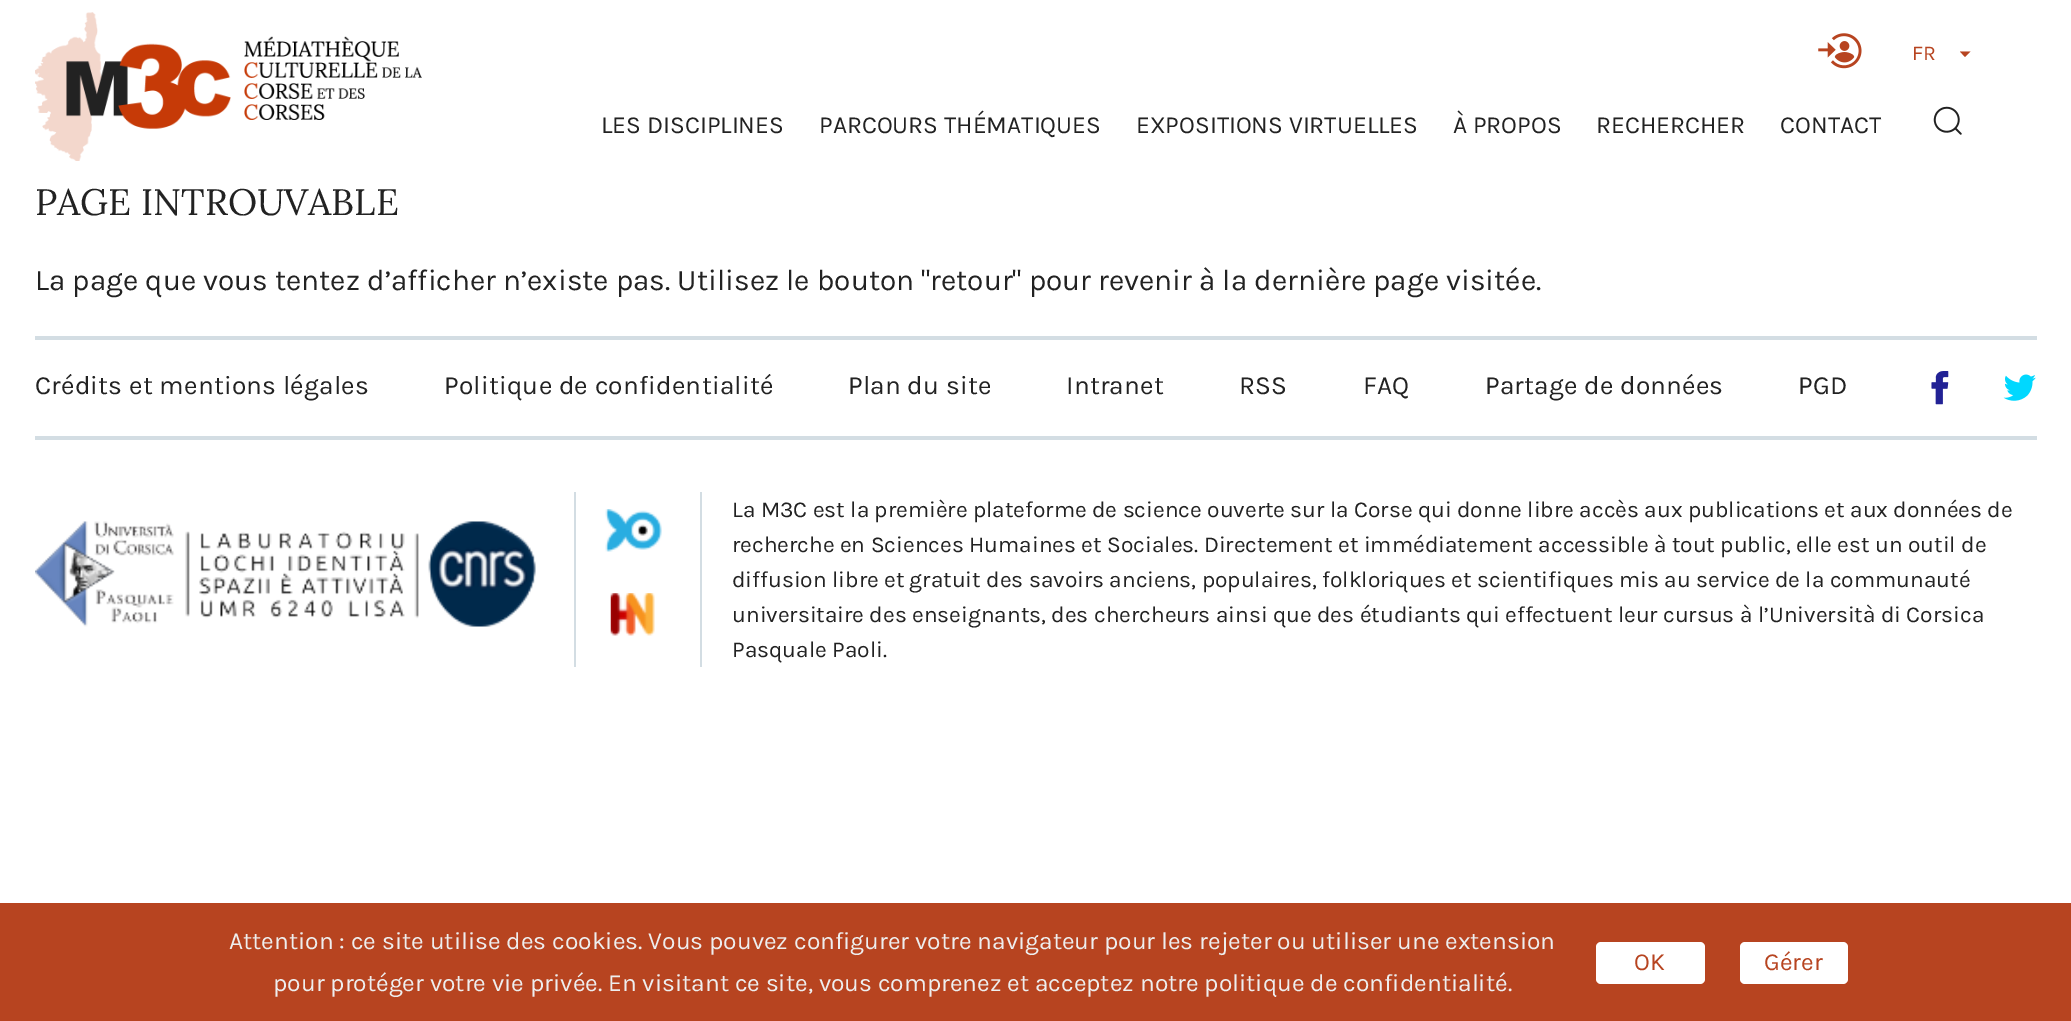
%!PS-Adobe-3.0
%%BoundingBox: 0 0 2071 1021
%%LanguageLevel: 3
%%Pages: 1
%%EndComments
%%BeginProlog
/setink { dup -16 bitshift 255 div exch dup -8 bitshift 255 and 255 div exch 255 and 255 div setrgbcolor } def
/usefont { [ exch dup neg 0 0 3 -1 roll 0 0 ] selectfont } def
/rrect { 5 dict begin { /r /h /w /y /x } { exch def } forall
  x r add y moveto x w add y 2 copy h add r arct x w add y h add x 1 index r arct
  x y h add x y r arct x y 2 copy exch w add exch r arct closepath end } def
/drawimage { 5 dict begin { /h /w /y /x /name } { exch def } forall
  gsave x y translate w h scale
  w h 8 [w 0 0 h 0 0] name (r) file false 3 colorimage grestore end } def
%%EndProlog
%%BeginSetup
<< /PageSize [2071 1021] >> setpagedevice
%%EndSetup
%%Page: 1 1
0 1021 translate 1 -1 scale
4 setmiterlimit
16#FFFFFF setink
0 0 2071 1021 rectfill
(img1.raw) 35 12 387 149 drawimage
(img2.raw) 1818 33 44 36 drawimage
/Karla-Regular 21 usefont
16#B74420 setink
1912 60 moveto (FR) show
1960 51.5 moveto 1970.5 51.5 lineto 1965 57 lineto closepath fill
/Karla-Regular 24.5 usefont
16#222222 setink
[
    [(LES DISCIPLINES) 601 133]
    [(PARCOURS THÉMATIQUES) 819 133]
    [(EXPOSITIONS VIRTUELLES) 1136 133]
    [(À PROPOS) 1453 133]
    [(RECHERCHER) 1596 133]
    [(CONTACT) 1780 133]
] { aload pop moveto show } forall
(img3.raw) 1933 106 29 29 drawimage
/Lora-Regular 36.75 usefont
35 215 moveto (PAGE INTROUVABLE) show
/Karla-Regular 29.75 usefont
35 290 moveto (La page que vous tentez d’afficher n’existe pas. Utilisez le bouton "retour" pour revenir à la dernière page visitée.) show
16#D3DDE3 setink
35 336 2002 4 rectfill
35 436 2002 4 rectfill
/Karla-Regular 26.25 usefont
16#222222 setink
35 394 moveto 0.2 0 (Crédits et mentions légales) ashow
444 394 moveto 0.2 0 (Politique de confidentialité) ashow
848 394 moveto 0.2 0 (Plan du site) ashow
1066 394 moveto 0.2 0 (Intranet) ashow
1239 394 moveto 0.2 0 (RSS) ashow
1363 394 moveto 0.2 0 (FAQ) ashow
1485 394 moveto 0.2 0 (Partage de données) ashow
1798 394 moveto 0.2 0 (PGD) ashow
(img4.raw) 1931 371 18 34 drawimage
(img5.raw) 2003 374 33 27 drawimage
(img6.raw) 35 521 501 106 drawimage
16#D3DDE3 setink
574 492 2 175 rectfill
(img7.raw) 605 509 57 43 drawimage
700 492 2 175 rectfill
(img8.raw) 610 593 45 43 drawimage
/Karla-Regular 22.75 usefont
16#222222 setink
[
    [(La M3C est la première plateforme de science ouverte sur la Corse qui donne libre accès aux publications et aux données de) 732 517]
    [(recherche en Sciences Humaines et Sociales. Directement et immédiatement accessible à tout public, elle est un outil de) 732 552]
    [(diffusion libre et gratuit des savoirs anciens, populaires, folkloriques et scientifiques mis au service de la communauté) 732 587]
    [(universitaire des enseignants, des chercheurs ainsi que des étudiants qui effectuent leur cursus à l’Università di Corsica) 732 622]
    [(Pasquale Paoli.) 732 657]
] { aload pop moveto show } forall
16#B74420 setink
0 903 2071 118 rectfill
/Karla-Regular 24.5 usefont
16#EEEEEE setink
229 949 moveto (Attention : ce site utilise des cookies. Vous pouvez configurer votre navigateur pour les rejeter ou utiliser une extension) show
273 991 moveto (pour protéger votre vie privée. En visitant ce site, vous comprenez et acceptez notre politique de confidentialité.) show
16#FFFFFF setink
1596 942 109 42 5 rrect fill
16#B74420 setink
1634 970 moveto (OK) show
16#FFFFFF setink
1740 942 108 42 5 rrect fill
16#B74420 setink
1764 970 moveto (Gérer) show
showpage
%%EOF
